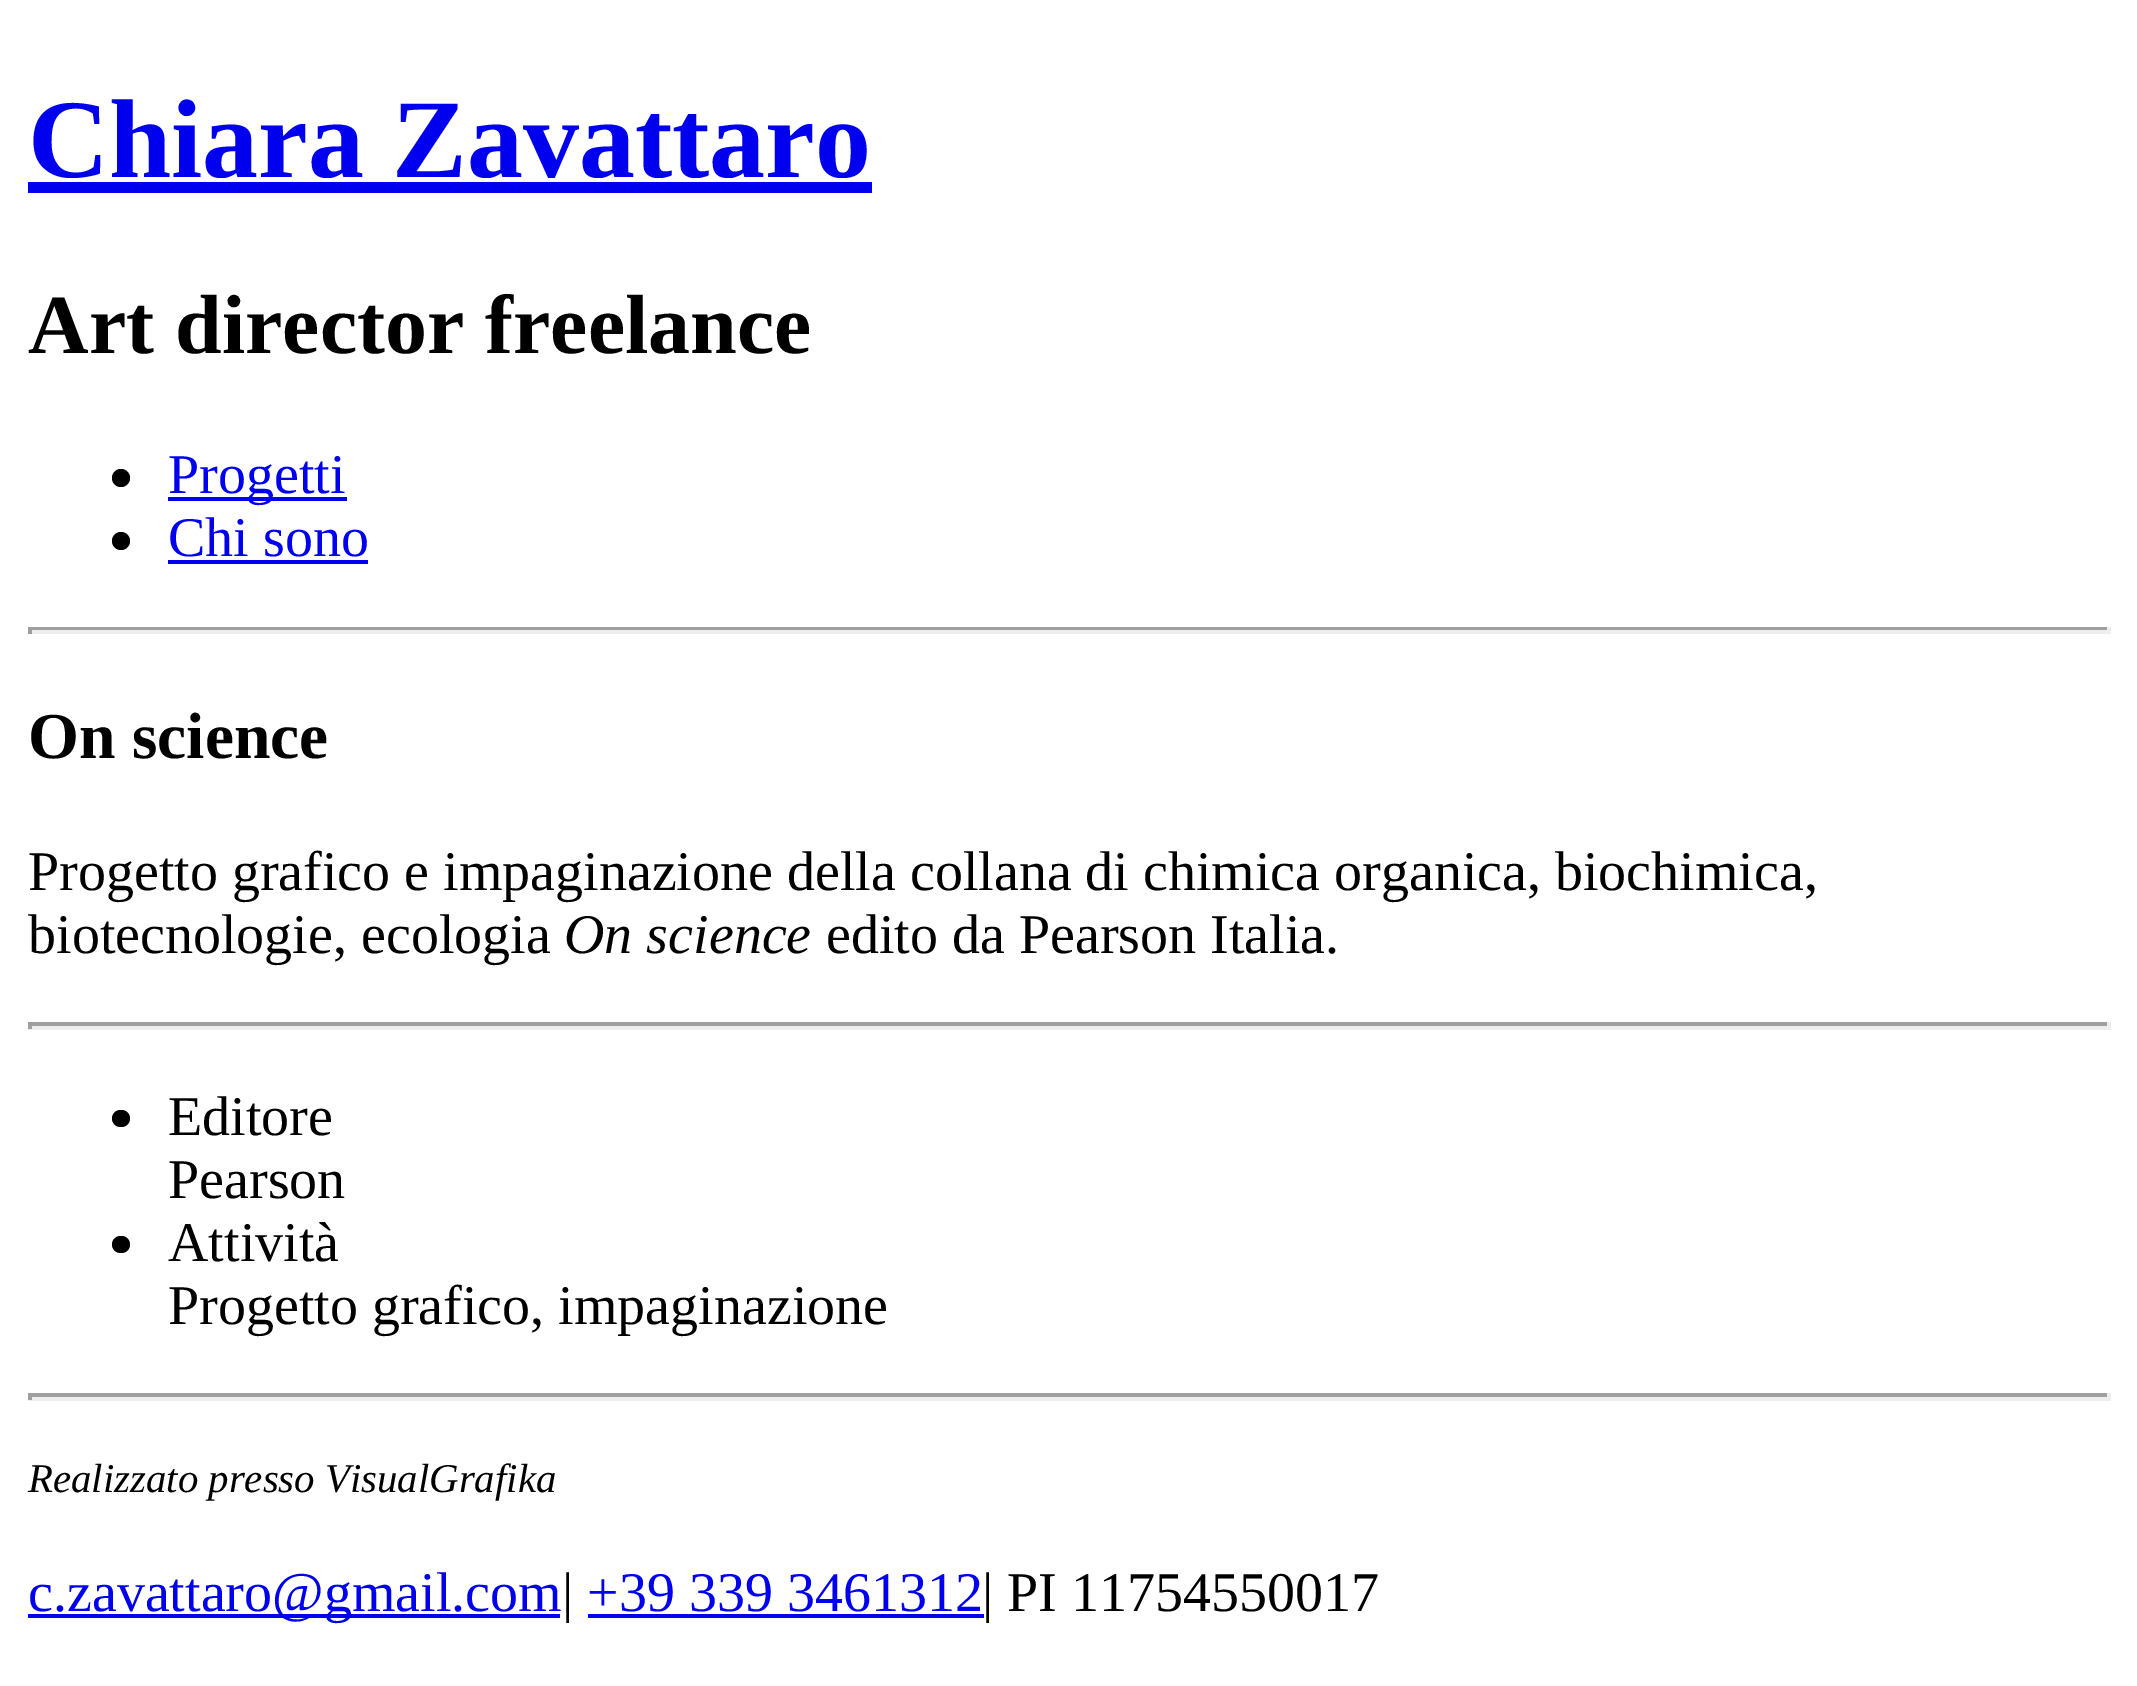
%!PS-Adobe-3.0
%%BoundingBox: 0 0 2137 1686
%%LanguageLevel: 3
%%Pages: 1
%%EndComments
%%BeginProlog
/setink { dup -16 bitshift 255 div exch dup -8 bitshift 255 and 255 div exch 255 and 255 div setrgbcolor } def
/usefont { [ exch dup neg 0 0 3 -1 roll 0 0 ] selectfont } def
/disc { newpath 0 360 arc closepath } def
/rrect { 5 dict begin { /r /h /w /y /x } { exch def } forall
  x r add y moveto x w add y 2 copy h add r arct x w add y h add x 1 index r arct
  x y h add x y r arct x y 2 copy exch w add exch r arct closepath end } def
%%EndProlog
%%BeginSetup
<< /PageSize [2137 1686] >> setpagedevice
%%EndSetup
%%Page: 1 1
0 1686 translate 1 -1 scale
4 setmiterlimit
16#FFFFFF setink
0 0 2137 1686 rectfill
/LiberationSerif-Bold 112 usefont
16#0000EE setink
28 177 moveto (Chiara Zavattaro) show
28 182 844 11 rectfill
/LiberationSerif-Bold 84 usefont
16#000000 setink
28 353 moveto (Art director freelance) show
121 478 9 disc fill
16#0000EE setink
168 497 179 4 rectfill
/LiberationSerif-Regular 56 usefont
168 493 moveto (Progetti) show
16#000000 setink
121 541 9 disc fill
16#0000EE setink
168 556 moveto (Chi sono) show
[
    [168 560 200 4 16#0000EE]
    [28 627 2083 3 16#9F9F9F]
    [2107 627 4 7 16#EEEEEE]
    [28 630 2083 4 16#EEEEEE]
    [28 627 4 7 16#9F9F9F]
] { aload pop setink rectfill } forall
/LiberationSerif-Bold 65.5 usefont
16#000000 setink
28 758 moveto (On science) show
/LiberationSerif-Regular 56 usefont
28 890 moveto (Progetto grafico e impaginazione della collana di chimica organica, biochimica,) show
28 953 moveto (biotecnologie, ecologia) show
/LiberationSerif-Italic 56 usefont
564 953 moveto (On science) show
/LiberationSerif-Regular 56 usefont
826 953 moveto (edito da Pearson Italia.) show
[
    [28 1022 2083 4 16#9F9F9F]
    [2107 1022 4 7 16#EEEEEE]
    [28 1026 2083 4 16#EEEEEE]
    [28 1022 4 7 16#9F9F9F]
] { aload pop setink rectfill } forall
16#000000 setink
112 1110 18 17 8.5 rrect fill
168 1135 moveto (Editore) show
168 1198 moveto (Pearson) show
112 1236 18 17 8.5 rrect fill
168 1261 moveto (Attività) show
168 1324 moveto (Progetto grafico, impaginazione) show
[
    [28 1393 2083 4 16#9F9F9F]
    [2107 1393 4 7 16#EEEEEE]
    [28 1397 2083 4 16#EEEEEE]
    [28 1393 4 7 16#9F9F9F]
] { aload pop setink rectfill } forall
/LiberationSerif-Italic 40.8 usefont
16#000000 setink
28 1492 moveto (Realizzato presso VisualGrafika) show
16#0000EE setink
28 1614 532 4 rectfill
/LiberationSerif-Regular 56 usefont
28 1611 moveto (c.zavattaro@gmail.com) show
16#000000 setink
562 1611 moveto (|) show
16#0000EE setink
587 1611 moveto (+39 339 3461312) show
16#000000 setink
982 1611 moveto (| PI 11754550017) show
16#0000EE setink
588 1614 396 4 rectfill
showpage
%%EOF
